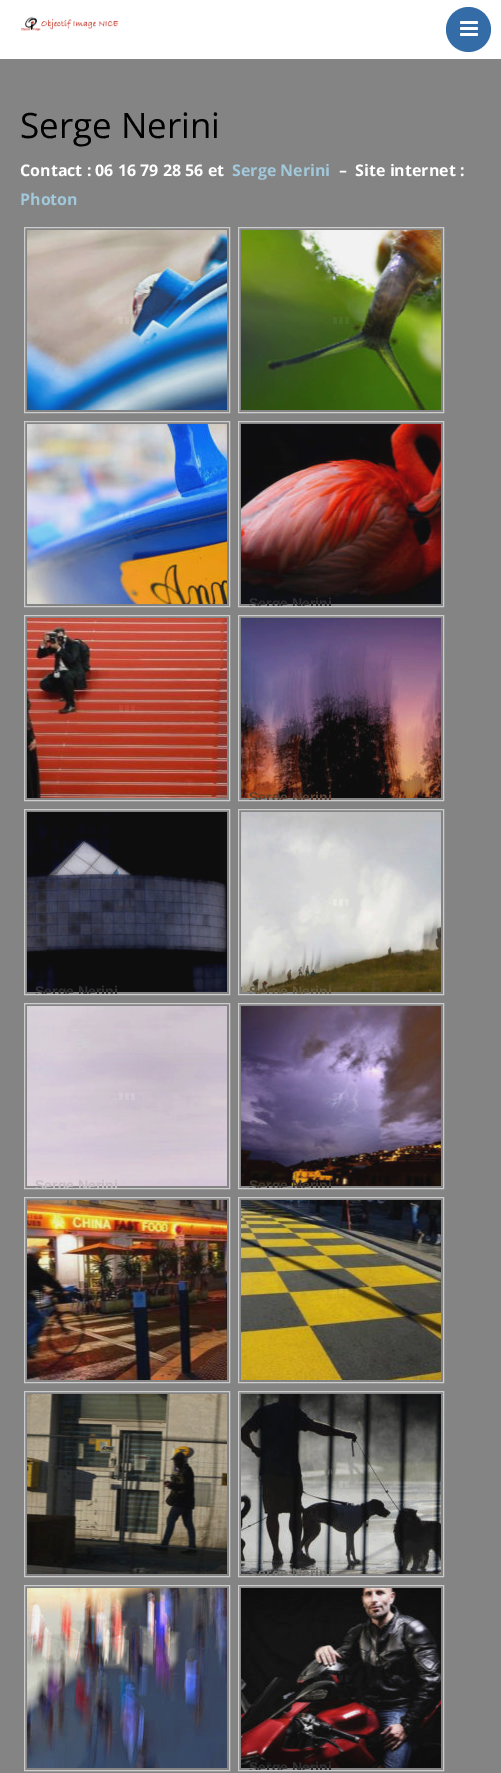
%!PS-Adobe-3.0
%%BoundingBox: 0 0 501 1773
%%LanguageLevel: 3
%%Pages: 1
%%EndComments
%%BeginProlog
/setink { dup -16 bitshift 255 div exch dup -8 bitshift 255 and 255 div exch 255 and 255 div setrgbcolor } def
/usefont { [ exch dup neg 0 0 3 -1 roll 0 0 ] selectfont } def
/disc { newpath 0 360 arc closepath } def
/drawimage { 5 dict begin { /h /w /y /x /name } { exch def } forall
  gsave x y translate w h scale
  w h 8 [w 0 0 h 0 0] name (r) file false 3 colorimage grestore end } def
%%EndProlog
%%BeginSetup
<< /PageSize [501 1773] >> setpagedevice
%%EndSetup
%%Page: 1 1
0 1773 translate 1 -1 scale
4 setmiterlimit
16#848484 setink
0 0 501 1773 rectfill
16#FFFFFF setink
0 0 501 59 rectfill
(img1.raw) 20 16 99 16 drawimage
16#336CA6 setink
468.5 29.5 22.5 disc fill
(img2.raw) 460 21 18 15 drawimage
/OpenSans-Regular 35 usefont
16#000000 setink
20 138 moveto (Serge Nerini) show
/OpenSans-Bold 16 usefont
16#FFFFFF setink
20 176 moveto (Contact : 06 16 79 28 56 et) show
16#A1C9DB setink
232 176 moveto (Serge Nerini) show
16#FFFFFF setink
339 176 moveto (–  Site internet :) show
16#A1C9DB setink
20 205 moveto (Photon) show
(img3.raw) 119 317 16 7 drawimage
16#CCCCCC setink
24.5 227.5 205 185 rectstroke
(img4.raw) 27 230 200 180 drawimage
(img3.raw) 333 317 16 7 drawimage
238.5 227.5 205 185 rectstroke
(img5.raw) 241 230 200 180 drawimage
(img3.raw) 119 511 16 7 drawimage
24.5 421.5 205 185 rectstroke
(img6.raw) 27 424 200 180 drawimage
(img3.raw) 333 511 16 7 drawimage
238.5 421.5 205 185 rectstroke
(img7.raw) 241 424 200 180 drawimage
gsave
239 568 204 38 rectclip
/LiberationSans-Bold 14 usefont
16#2F2F32 setink
249 608 moveto (Serge Nerini) show
grestore
(img3.raw) 119 705 16 7 drawimage
24.5 615.5 205 185 rectstroke
(img8.raw) 27 618 200 180 drawimage
(img3.raw) 333 705 16 7 drawimage
238.5 615.5 205 185 rectstroke
(img9.raw) 241 618 200 180 drawimage
gsave
239 762 204 38 rectclip
/LiberationSans-Bold 14 usefont
16#5E3F31 setink
249 802 moveto (Serge Nerini) show
grestore
(img3.raw) 119 899 16 7 drawimage
24.5 809.5 205 185 rectstroke
(img10.raw) 27 812 200 180 drawimage
gsave
25 956 204 38 rectclip
/LiberationSans-Bold 14 usefont
16#2F2F32 setink
35 996 moveto (Serge Nerini) show
grestore
(img3.raw) 333 899 16 7 drawimage
238.5 809.5 205 185 rectstroke
(img11.raw) 241 812 200 180 drawimage
gsave
239 956 204 38 rectclip
/LiberationSans-Bold 14 usefont
16#625940 setink
249 996 moveto (Serge Nerini) show
grestore
(img3.raw) 119 1093 16 7 drawimage
24.5 1003.5 205 185 rectstroke
(img12.raw) 27 1006 200 180 drawimage
gsave
25 1150 204 38 rectclip
/LiberationSans-Bold 14 usefont
16#C5BCC2 setink
35 1190 moveto (Serge Nerini) show
grestore
(img3.raw) 333 1093 16 7 drawimage
238.5 1003.5 205 185 rectstroke
(img13.raw) 241 1006 200 180 drawimage
gsave
239 1150 204 38 rectclip
/LiberationSans-Bold 14 usefont
16#403830 setink
249 1190 moveto (Serge Nerini) show
grestore
(img3.raw) 119 1287 16 7 drawimage
24.5 1197.5 205 185 rectstroke
(img14.raw) 27 1200 200 180 drawimage
(img3.raw) 333 1287 16 7 drawimage
238.5 1197.5 205 185 rectstroke
(img15.raw) 241 1200 200 180 drawimage
(img3.raw) 119 1481 16 7 drawimage
24.5 1391.5 205 185 rectstroke
(img16.raw) 27 1394 200 180 drawimage
(img3.raw) 333 1481 16 7 drawimage
238.5 1391.5 205 185 rectstroke
(img17.raw) 241 1394 200 180 drawimage
gsave
239 1538 204 38 rectclip
/LiberationSans-Bold 14 usefont
16#6E6E6C setink
249 1578 moveto (Serge Nerini) show
grestore
(img3.raw) 119 1675 16 7 drawimage
24.5 1585.5 205 185 rectstroke
(img18.raw) 27 1588 200 180 drawimage
(img3.raw) 333 1675 16 7 drawimage
238.5 1585.5 205 185 rectstroke
(img19.raw) 241 1588 200 180 drawimage
gsave
239 1732 204 38 rectclip
/LiberationSans-Bold 14 usefont
16#2F2F32 setink
249 1772 moveto (Serge Nerini) show
grestore
showpage
%%EOF
